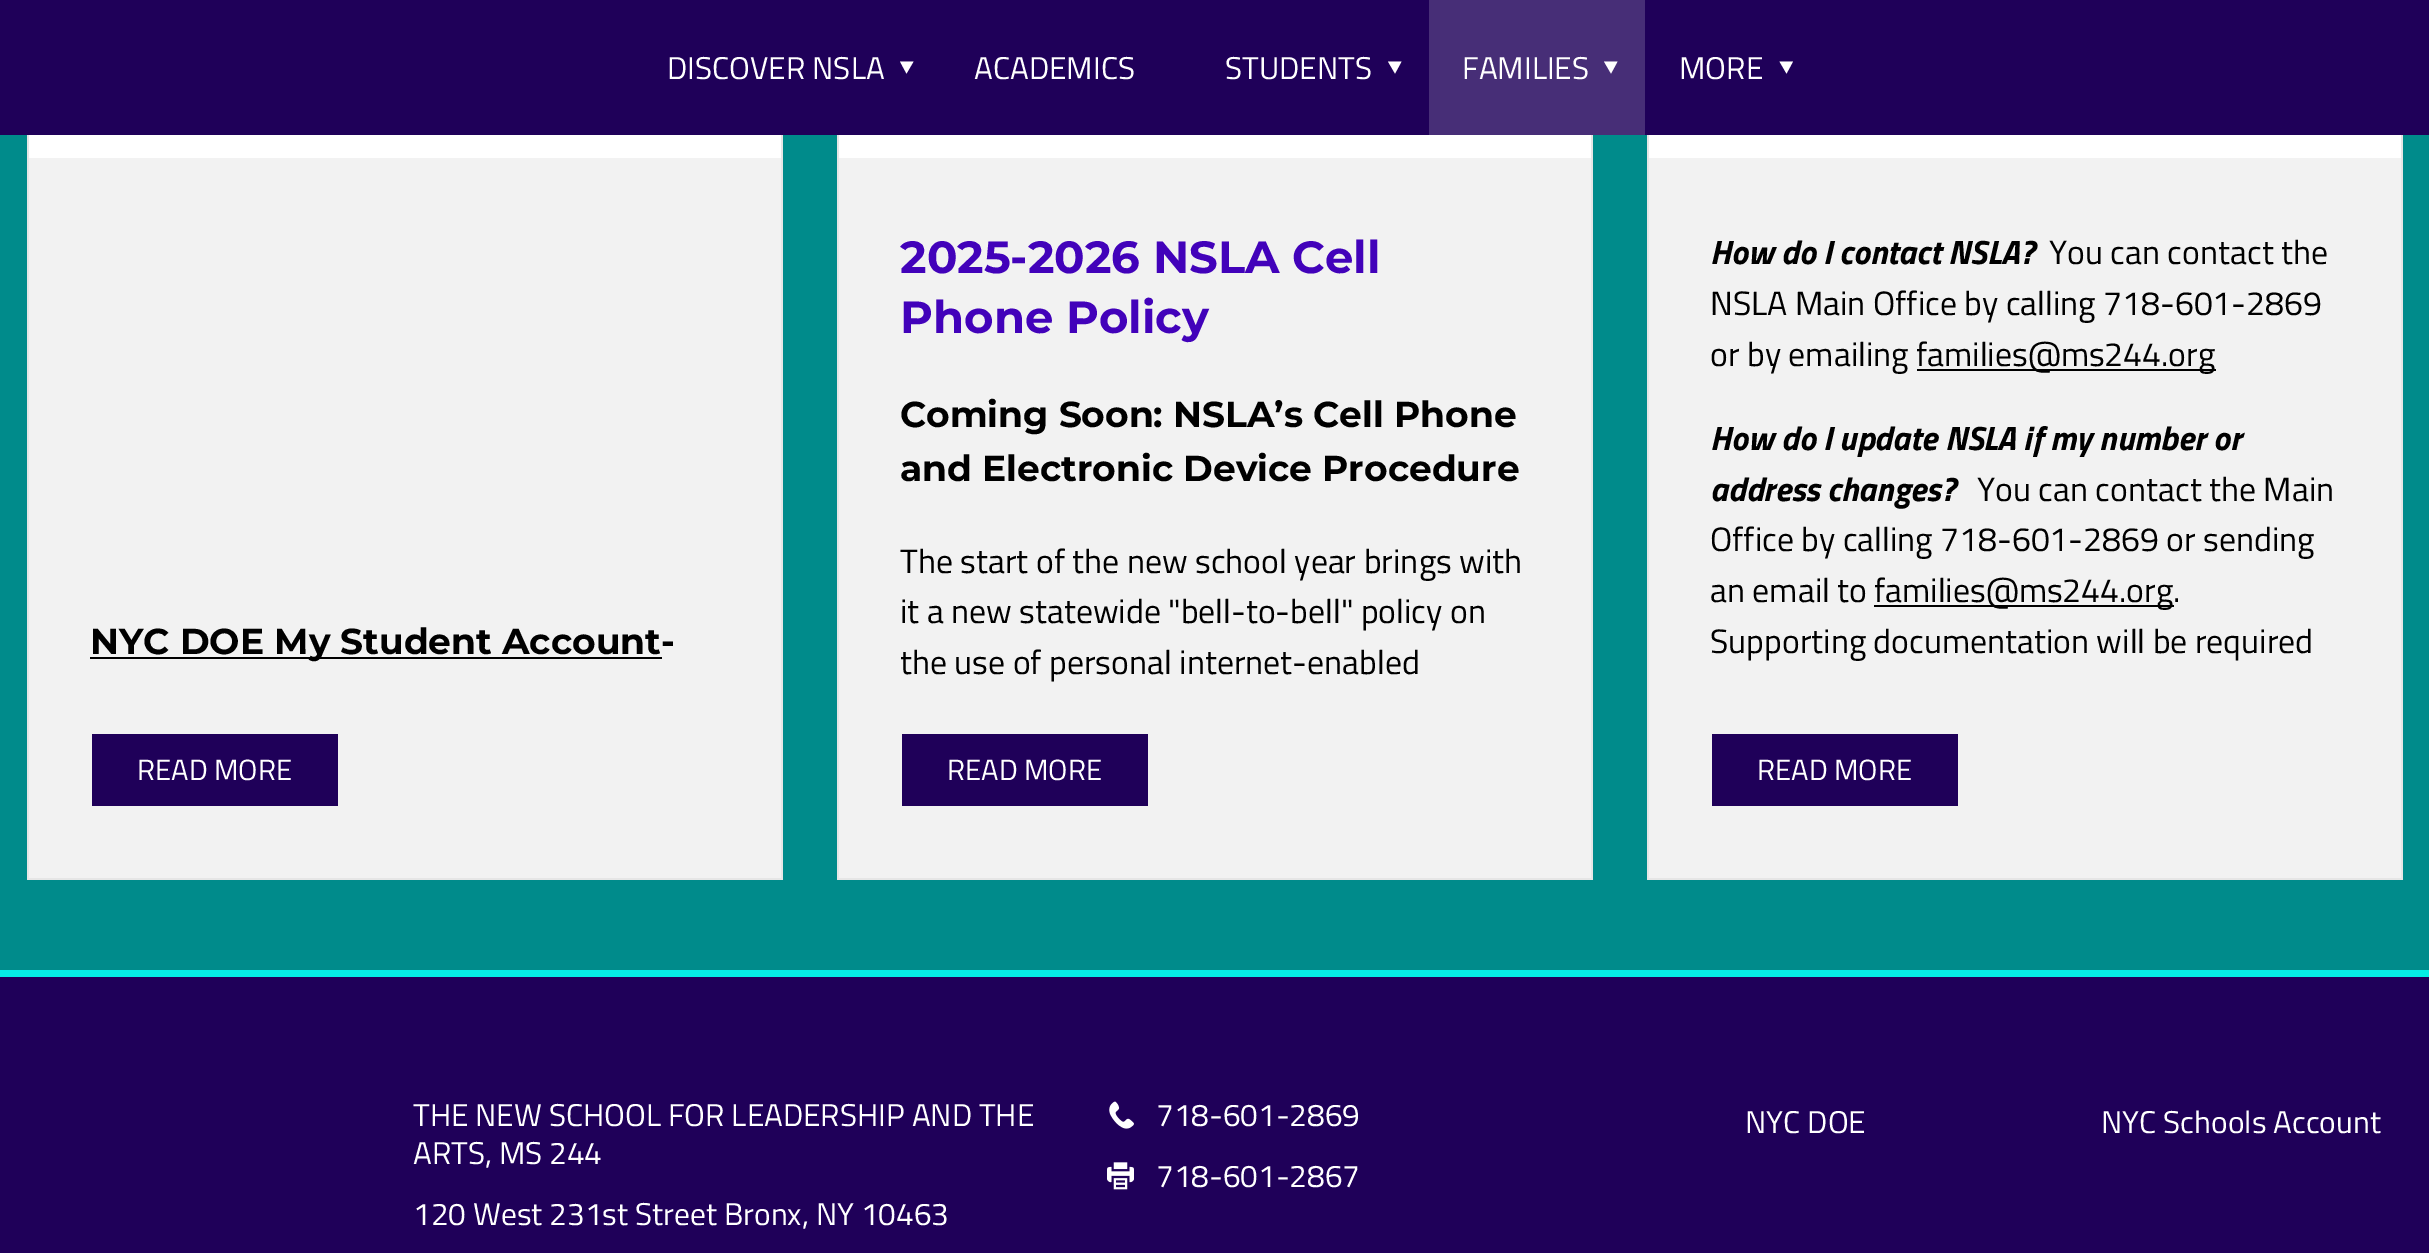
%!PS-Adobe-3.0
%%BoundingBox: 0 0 2429 1253
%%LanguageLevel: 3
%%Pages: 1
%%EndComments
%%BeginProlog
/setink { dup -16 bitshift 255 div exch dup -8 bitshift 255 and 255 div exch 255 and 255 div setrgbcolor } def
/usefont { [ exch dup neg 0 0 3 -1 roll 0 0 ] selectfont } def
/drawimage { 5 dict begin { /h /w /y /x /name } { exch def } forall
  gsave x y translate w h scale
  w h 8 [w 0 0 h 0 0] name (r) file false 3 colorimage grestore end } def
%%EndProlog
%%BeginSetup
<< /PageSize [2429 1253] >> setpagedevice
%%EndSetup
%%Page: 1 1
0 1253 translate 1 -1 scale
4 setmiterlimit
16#008B8B setink
0 0 2429 1253 rectfill
16#1F0059 setink
0 0 2429 135 rectfill
/TitilliumWeb-Regular 31.5 usefont
16#FFFFFF setink
667 79 moveto (DISCOVER NSLA) show
913.5 61.5 moveto 906.5 73.5 lineto 900 61.5 lineto closepath fill
974 79 moveto (ACADEMICS) show
1225 79 moveto (STUDENTS) show
1401.5 61.5 moveto 1395 73.5 lineto 1388 61.5 lineto closepath fill
16#472E77 setink
1429 0 216 135 rectfill
16#FFFFFF setink
1462 79 moveto (FAMILIES) show
1617.5 61.5 moveto 1611 73.5 lineto 1604 61.5 lineto closepath fill
1679 79 moveto (MORE) show
1793 61.5 moveto 1786.5 73.5 lineto 1779.5 61.5 lineto closepath fill
[
    [29 158 752 720 16#F2F2F2]
    [27 135 2 745 16#E6E6E6]
    [29 135 752 23 16#FFFFFF]
    [781 135 2 745 16#E6E6E6]
    [90 657 572 2 16#000000]
] { aload pop setink rectfill } forall
/Montserrat-Bold 36 usefont
90 654 moveto (NYC DOE My Student Account-) show
16#E6E6E6 setink
29 878 752 2 rectfill
16#1F0059 setink
92 734 246 72 rectfill
/TitilliumWeb-Regular 29.25 usefont
16#FFFFFF setink
137 780 moveto (READ MORE) show
[
    [839 158 752 720 16#F2F2F2]
    [837 135 2 745 16#E6E6E6]
    [839 135 752 23 16#FFFFFF]
    [1591 135 2 745 16#E6E6E6]
] { aload pop setink rectfill } forall
/Montserrat-Bold 45 usefont
16#4202BA setink
900 273 moveto (2025-2026 NSLA Cell) show
900 333 moveto (Phone Policy) show
/Montserrat-Bold 36 usefont
16#000000 setink
900 427 moveto (Coming Soon: NSLA’s Cell Phone) show
900 481 moveto (and Electronic Device Procedure) show
/TitilliumWeb-Regular 33.75 usefont
[
    [(The start of the new school year brings with) 900 573]
    [(it a new statewide "bell-to-bell" policy on) 900 623]
    [(the use of personal internet-enabled) 900 674]
] { aload pop moveto show } forall
16#E6E6E6 setink
839 878 752 2 rectfill
16#1F0059 setink
902 734 246 72 rectfill
/TitilliumWeb-Regular 29.25 usefont
16#FFFFFF setink
947 780 moveto (READ MORE) show
[
    [1649 158 752 720 16#F2F2F2]
    [1647 135 2 745 16#E6E6E6]
    [1649 135 752 23 16#FFFFFF]
    [2401 135 2 745 16#E6E6E6]
] { aload pop setink rectfill } forall
/TitilliumWeb-BoldItalic 33.75 usefont
16#000000 setink
1710 264 moveto (How do I contact NSLA?) show
/TitilliumWeb-Regular 33.75 usefont
[
    [(You can contact the) 2049 264]
    [(NSLA Main Office by calling 718-601-2869) 1710 315]
    [(or by emailing) 1710 366]
] { aload pop moveto show } forall
1917 369 299 2 rectfill
1916 366 moveto (families@ms244.org) show
/TitilliumWeb-BoldItalic 33.75 usefont
1710 450 moveto (How do I update NSLA if my number or) show
1710 501 moveto (address changes?) show
/TitilliumWeb-Regular 33.75 usefont
[
    [(You can contact the Main) 1977 501]
    [(Office by calling 718-601-2869 or sending) 1710 551]
    [(an email to) 1710 602]
] { aload pop moveto show } forall
1874 605 300 2 rectfill
1874 602 moveto (families@ms244.org.) show
1710 653 moveto (Supporting documentation will be required) show
16#E6E6E6 setink
1649 878 752 2 rectfill
16#1F0059 setink
1712 734 246 72 rectfill
/TitilliumWeb-Regular 29.25 usefont
16#FFFFFF setink
1757 780 moveto (READ MORE) show
16#1F0059 setink
0 977 2429 276 rectfill
16#05EDE5 setink
0 970 2429 7 rectfill
/TitilliumWeb-Regular 31.5 usefont
16#FFFFFF setink
[
    [(THE NEW SCHOOL FOR LEADERSHIP AND THE) 413 1126]
    [(ARTS, MS 244) 413 1164]
    [(120 West 231st Street Bronx, NY 10463) 413 1225]
] { aload pop moveto show } forall
(img1.raw) 1109 1101 25 28 drawimage
1156 1126 moveto (718-601-2869) show
(img2.raw) 1107 1162 27 28 drawimage
[
    [(718-601-2867) 1156 1187]
    [(NYC DOE) 1745 1133]
    [(NYC Schools Account) 2101 1133]
] { aload pop moveto show } forall
showpage
%%EOF
